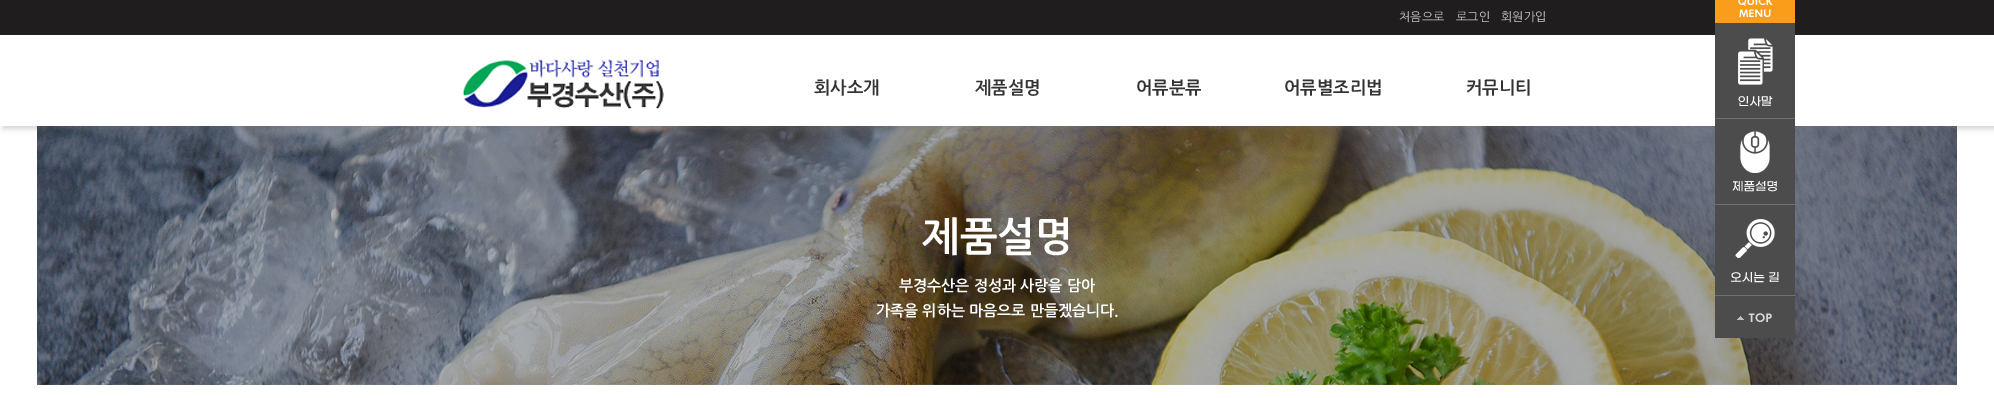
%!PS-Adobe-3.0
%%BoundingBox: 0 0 1994 398
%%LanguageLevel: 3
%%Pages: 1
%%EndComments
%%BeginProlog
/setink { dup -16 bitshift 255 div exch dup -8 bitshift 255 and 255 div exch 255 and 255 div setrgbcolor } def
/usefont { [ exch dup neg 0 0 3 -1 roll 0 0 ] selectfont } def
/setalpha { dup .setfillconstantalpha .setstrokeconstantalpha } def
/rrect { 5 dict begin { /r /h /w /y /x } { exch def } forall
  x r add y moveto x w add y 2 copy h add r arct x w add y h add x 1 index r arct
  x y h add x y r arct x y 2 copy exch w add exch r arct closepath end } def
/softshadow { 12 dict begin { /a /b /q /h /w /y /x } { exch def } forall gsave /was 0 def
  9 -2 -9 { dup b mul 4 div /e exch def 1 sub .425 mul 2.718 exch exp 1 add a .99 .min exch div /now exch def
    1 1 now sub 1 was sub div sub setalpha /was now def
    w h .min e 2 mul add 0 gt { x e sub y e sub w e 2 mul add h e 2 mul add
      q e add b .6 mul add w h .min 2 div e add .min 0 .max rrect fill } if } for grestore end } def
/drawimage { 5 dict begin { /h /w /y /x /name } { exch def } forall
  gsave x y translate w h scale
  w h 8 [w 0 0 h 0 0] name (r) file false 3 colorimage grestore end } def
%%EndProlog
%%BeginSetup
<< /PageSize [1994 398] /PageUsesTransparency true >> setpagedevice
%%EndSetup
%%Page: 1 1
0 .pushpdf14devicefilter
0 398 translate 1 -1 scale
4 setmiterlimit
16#FFFFFF setink
0 0 1994 398 rectfill
16#1F1D1D setink
0 0 1994 35 rectfill
/NanumGothic-Regular 12 usefont
16#C8C8C8 setink
[
    [(처음으로) 1399 21]
    [(로그인) 1456 21]
    [(회원가입) 1501 21]
] { aload pop moveto show } forall
(img2.raw) 37 126 1920 259 drawimage
16#717171 setink
3 38 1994 91 0 3 0.3 softshadow
16#FFFFFF setink
0 35 1994 91 rectfill
(img1.raw) 463 59 201 50 drawimage
/NanumGothic-Bold 17.5 usefont
16#333333 setink
[
    [(회사소개) 814 94]
    [(제품설명) 975 94]
    [(어류분류) 1136 94]
    [(어류별조리법) 1284 94]
    [(커뮤니티) 1466 94]
] { aload pop moveto show } forall
/NanumGothic-Bold 40 usefont
16#FFFFFF setink
922 251 moveto (제품설명) show
/NanumGothic-Bold 15 usefont
899 291 moveto (부경수산은 정성과 사랑을 담아) show
876 316 moveto (가족을 위하는 마음으로 만들겠습니다.) show
(img3.raw) 1715 0 80 338 drawimage
.poppdf14devicefilter showpage
%%EOF
